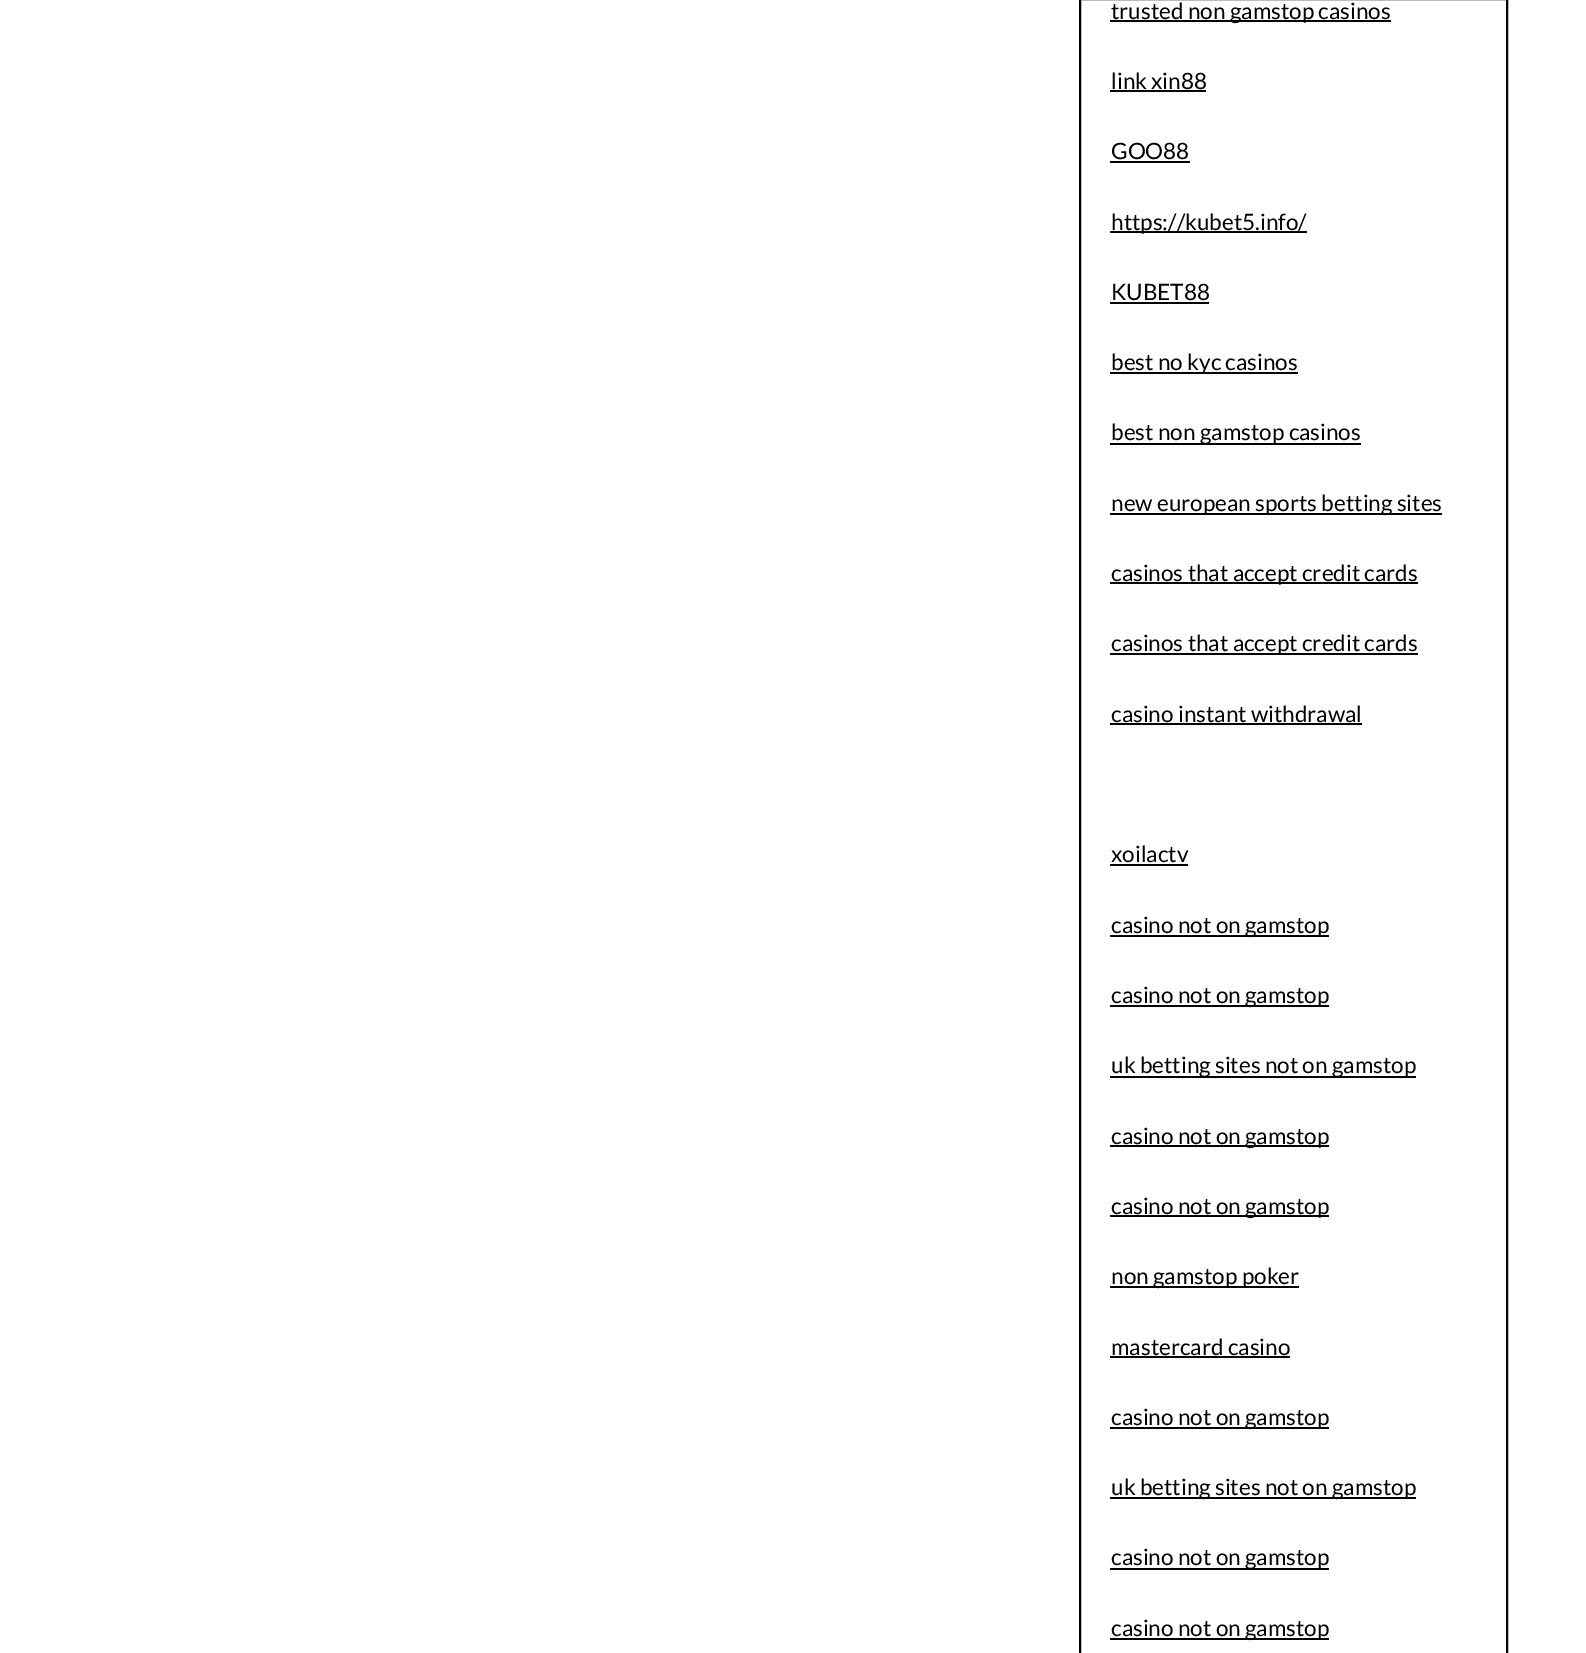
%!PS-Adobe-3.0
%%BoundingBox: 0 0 1586 1653
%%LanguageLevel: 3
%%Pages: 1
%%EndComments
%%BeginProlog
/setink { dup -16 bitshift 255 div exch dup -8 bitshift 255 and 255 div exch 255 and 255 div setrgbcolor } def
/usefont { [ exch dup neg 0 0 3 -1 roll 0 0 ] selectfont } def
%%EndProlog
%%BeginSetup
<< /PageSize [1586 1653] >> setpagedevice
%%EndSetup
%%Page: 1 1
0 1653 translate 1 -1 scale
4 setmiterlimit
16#FFFFFF setink
0 0 1586 1653 rectfill
16#000000 setink
2 setlinewidth
1080 -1 427 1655 rectstroke
1110 20 281 2 rectfill
/Lato-Regular 22.5 usefont
1111 19 moveto (trusted non gamstop casinos) show
1111 89 moveto (link xin88) show
1110 90 96 2 rectfill
1111 159 moveto (GOO88) show
1110 161 80 2 rectfill
1110 231 197 2 rectfill
1111 230 moveto (https://kubet5.info/) show
1111 300 moveto (KUBET88) show
1110 302 99 2 rectfill
1110 372 188 2 rectfill
1111 370 moveto (best no kyc casinos) show
1110 443 251 2 rectfill
1111 440 moveto (best non gamstop casinos) show
1110 513 332 2 rectfill
1111 511 moveto (new european sports betting sites) show
1110 582 308 2 rectfill
1111 581 moveto (casinos that accept credit cards) show
1110 653 308 2 rectfill
1111 651 moveto (casinos that accept credit cards) show
1111 722 moveto (casino instant withdrawal) show
1110 723 252 2 rectfill
1111 862 moveto (xoilactv) show
1110 864 78 2 rectfill
1110 935 219 2 rectfill
1111 933 moveto (casino not on gamstop) show
1110 1005 219 2 rectfill
1111 1003 moveto (casino not on gamstop) show
1110 1076 306 2 rectfill
1111 1073 moveto (uk betting sites not on gamstop) show
1110 1145 219 2 rectfill
1111 1144 moveto (casino not on gamstop) show
1110 1215 219 2 rectfill
1111 1214 moveto (casino not on gamstop) show
1110 1286 189 2 rectfill
1111 1284 moveto (non gamstop poker) show
1111 1355 moveto (mastercard casino) show
1110 1356 180 2 rectfill
1110 1427 219 2 rectfill
1111 1425 moveto (casino not on gamstop) show
1110 1497 306 2 rectfill
1111 1495 moveto (uk betting sites not on gamstop) show
1110 1568 219 2 rectfill
1111 1565 moveto (casino not on gamstop) show
1110 1638 219 2 rectfill
1111 1636 moveto (casino not on gamstop) show
showpage
%%EOF
